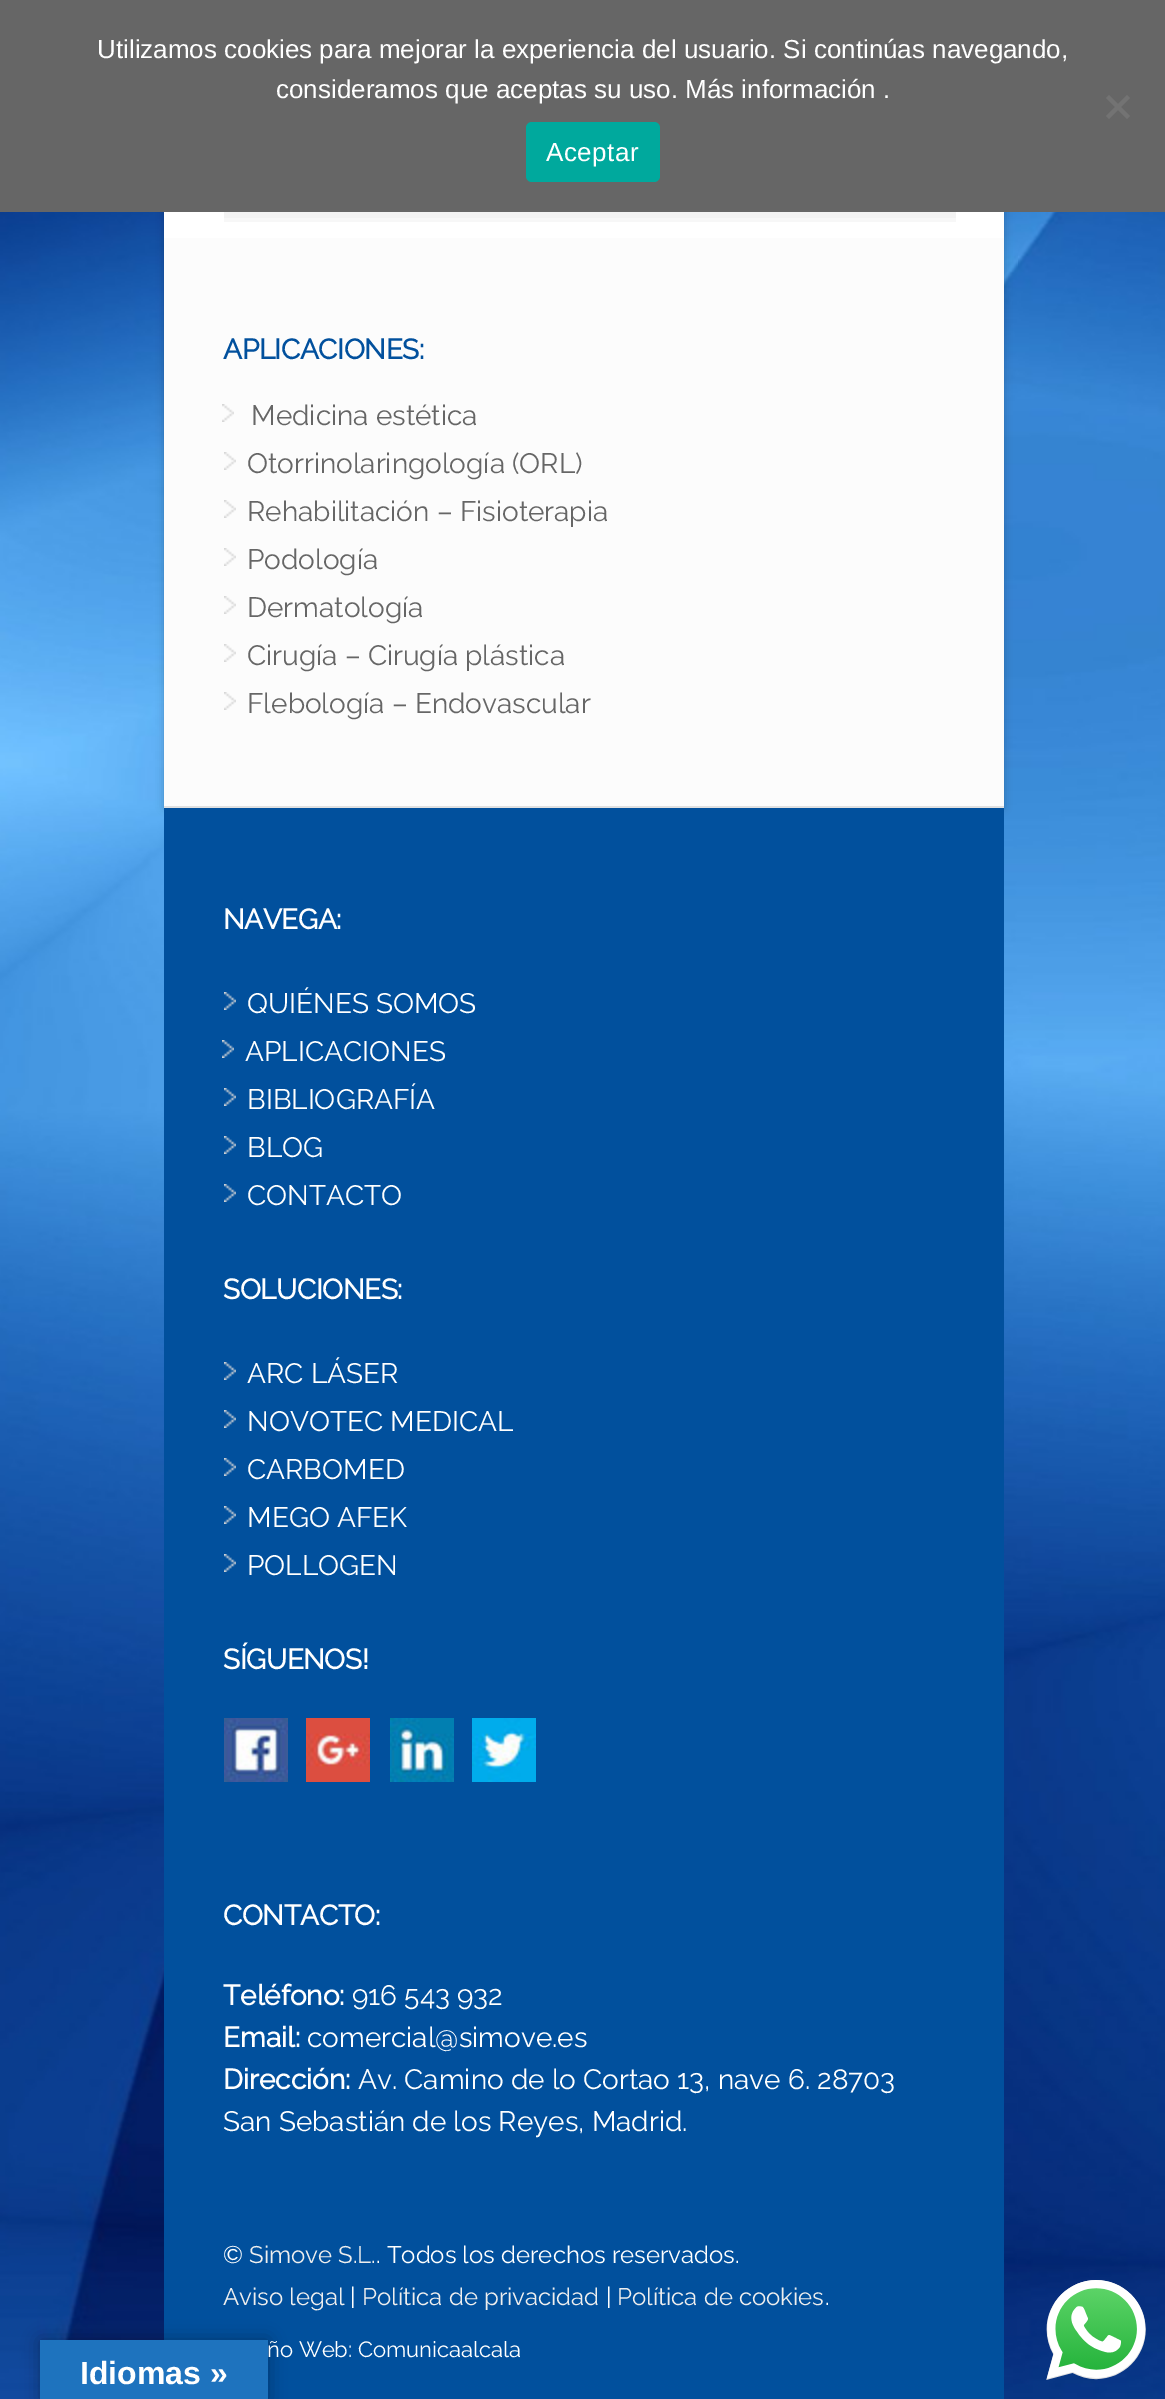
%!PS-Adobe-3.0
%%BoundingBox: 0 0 1165 2399
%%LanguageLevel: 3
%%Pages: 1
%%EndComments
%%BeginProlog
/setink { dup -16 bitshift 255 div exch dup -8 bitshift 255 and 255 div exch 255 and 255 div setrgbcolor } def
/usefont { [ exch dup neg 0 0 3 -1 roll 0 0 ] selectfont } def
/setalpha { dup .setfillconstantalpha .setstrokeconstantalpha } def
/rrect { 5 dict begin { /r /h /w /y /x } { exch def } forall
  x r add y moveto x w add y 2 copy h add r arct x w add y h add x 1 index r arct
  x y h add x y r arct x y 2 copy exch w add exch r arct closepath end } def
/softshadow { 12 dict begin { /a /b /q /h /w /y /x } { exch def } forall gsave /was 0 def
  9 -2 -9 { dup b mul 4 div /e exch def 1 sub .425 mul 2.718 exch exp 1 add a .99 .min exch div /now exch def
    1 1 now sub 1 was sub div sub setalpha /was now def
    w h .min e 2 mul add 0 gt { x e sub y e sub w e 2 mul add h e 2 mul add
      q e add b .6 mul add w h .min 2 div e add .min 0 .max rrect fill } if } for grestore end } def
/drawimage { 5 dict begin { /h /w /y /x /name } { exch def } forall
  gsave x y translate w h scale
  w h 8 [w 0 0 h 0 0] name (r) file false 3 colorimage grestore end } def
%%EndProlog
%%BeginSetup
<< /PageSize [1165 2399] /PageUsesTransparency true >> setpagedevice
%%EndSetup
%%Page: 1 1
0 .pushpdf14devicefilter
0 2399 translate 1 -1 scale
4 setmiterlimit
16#FFFFFF setink
0 0 1165 2399 rectfill
(img1.raw) 0 212 1165 2187 drawimage
16#000000 setink
164 -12 840 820 0 4 0.2 softshadow
16#666666 setink
0 0 1165 212 rectfill
/LiberationSans-Regular 26 usefont
16#FFFFFF setink
97 58 moveto (Utilizamos cookies para mejorar la experiencia del usuario. Si continúas navegando,) show
276 98 moveto (consideramos que aceptas su uso. Más información .) show
16#737373 setink
1127 95 moveto 1130 98 lineto 1109 119 lineto 1106 116 lineto closepath fill
1106 98 moveto 1109 95 lineto 1130 116 lineto 1127 119 lineto closepath fill
16#00A99D setink
526 122 134 60 6 rrect fill
16#FFFFFF setink
546 161 moveto 0.5 0 (Aceptar) ashow
[
    [164 212 840 26 16#FFFFFF]
    [224 218 732 4 16#F7F7F7]
    [224 212 732 6 16#F2F2F2]
    [164 238 840 568 16#FCFCFC]
    [164 806 840 2 16#E0E0E0]
] { aload pop setink rectfill } forall
/Raleway-Bold 28 usefont
16#01509D setink
223 359 moveto -0.4 0 (APLICACIONES:) ashow
(img2.raw) 222 404 12 18 drawimage
/Raleway-Thin 28 usefont
16#666666 setink
251 425 moveto (Medicina estética) show
(img3.raw) 224 452 12 18 drawimage
247 473 moveto (Otorrinolaringología \(ORL\)) show
(img3.raw) 224 500 12 18 drawimage
247 521 moveto (Rehabilitación – Fisioterapia) show
(img3.raw) 224 548 12 18 drawimage
247 569 moveto (Podología) show
(img3.raw) 224 596 12 18 drawimage
247 617 moveto (Dermatología) show
(img3.raw) 224 644 12 18 drawimage
247 665 moveto (Cirugía – Cirugía plástica) show
(img3.raw) 224 692 12 18 drawimage
247 713 moveto (Flebología – Endovascular) show
16#01509D setink
164 808 840 1591 rectfill
/Raleway-Bold 28 usefont
16#FFFFFF setink
223 929 moveto -0.4 0 (NAVEGA:) ashow
(img4.raw) 224 992 12 18 drawimage
/Raleway-Thin 28 usefont
247 1013 moveto (QUIÉNES SOMOS) show
(img5.raw) 222 1040 12 18 drawimage
245 1061 moveto (APLICACIONES) show
(img4.raw) 224 1088 12 18 drawimage
247 1109 moveto (BIBLIOGRAFÍA) show
(img4.raw) 224 1136 12 18 drawimage
247 1157 moveto (BLOG) show
(img4.raw) 224 1184 12 18 drawimage
247 1205 moveto (CONTACTO) show
/Raleway-Bold 28 usefont
223 1299 moveto -0.4 0 (SOLUCIONES:) ashow
(img4.raw) 224 1362 12 18 drawimage
/Raleway-Thin 28 usefont
247 1383 moveto (ARC LÁSER) show
(img4.raw) 224 1410 12 18 drawimage
247 1431 moveto (NOVOTEC MEDICAL) show
(img4.raw) 224 1458 12 18 drawimage
247 1479 moveto (CARBOMED) show
(img4.raw) 224 1506 12 18 drawimage
247 1527 moveto (MEGO AFEK) show
(img4.raw) 224 1554 12 18 drawimage
247 1575 moveto (POLLOGEN) show
/Raleway-Bold 28 usefont
223 1669 moveto -0.4 0 (SÍGUENOS!) ashow
(img6.raw) 224 1718 64 64 drawimage
(img7.raw) 306 1718 64 64 drawimage
(img8.raw) 390 1718 64 64 drawimage
(img9.raw) 472 1718 64 64 drawimage
223 1925 moveto -0.4 0 (CONTACTO:) ashow
223 2005 moveto (Teléfono:) show
/Raleway-Thin 28 usefont
352 2005 moveto (916 543 932) show
/Raleway-Bold 28 usefont
223 2047 moveto (Email:) show
/Raleway-Thin 28 usefont
307 2047 moveto (comercial@simove.es) show
/Raleway-Bold 28 usefont
223 2089 moveto (Dirección:) show
/Raleway-Thin 28 usefont
358 2089 moveto (Av. Camino de lo Cortao 13, nave 6. 28703) show
223 2131 moveto (San Sebastián de los Reyes, Madrid.) show
16#000000 setink
40 2340 228 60 0 9 0.3 softshadow
16#1E73BE setink
40 2340 228 59 rectfill
/LiberationSans-Bold 32 usefont
16#FFFFFF setink
80 2384 moveto (Idiomas ») show
/Raleway-Thin 24 usefont
223 2263 moveto (©) show
16#EEEEEE setink
249 2263 moveto (Simove S.L.) show
16#FFFFFF setink
376 2263 moveto (. Todos los derechos reservados.) show
16#EEEEEE setink
223 2305 moveto (Aviso legal) show
16#FFFFFF setink
350 2305 moveto (|) show
16#EEEEEE setink
362 2305 moveto (Política de privacidad) show
16#FFFFFF setink
606 2305 moveto (|) show
16#EEEEEE setink
617 2305 moveto (Política de cookies) show
16#FFFFFF setink
825 2305 moveto (.) show
/Raleway-Thin 22 usefont
267 2357 moveto (ño Web: Comunicaalcala) show
(img10.raw) 1046 2280 100 100 drawimage
.poppdf14devicefilter showpage
%%EOF
